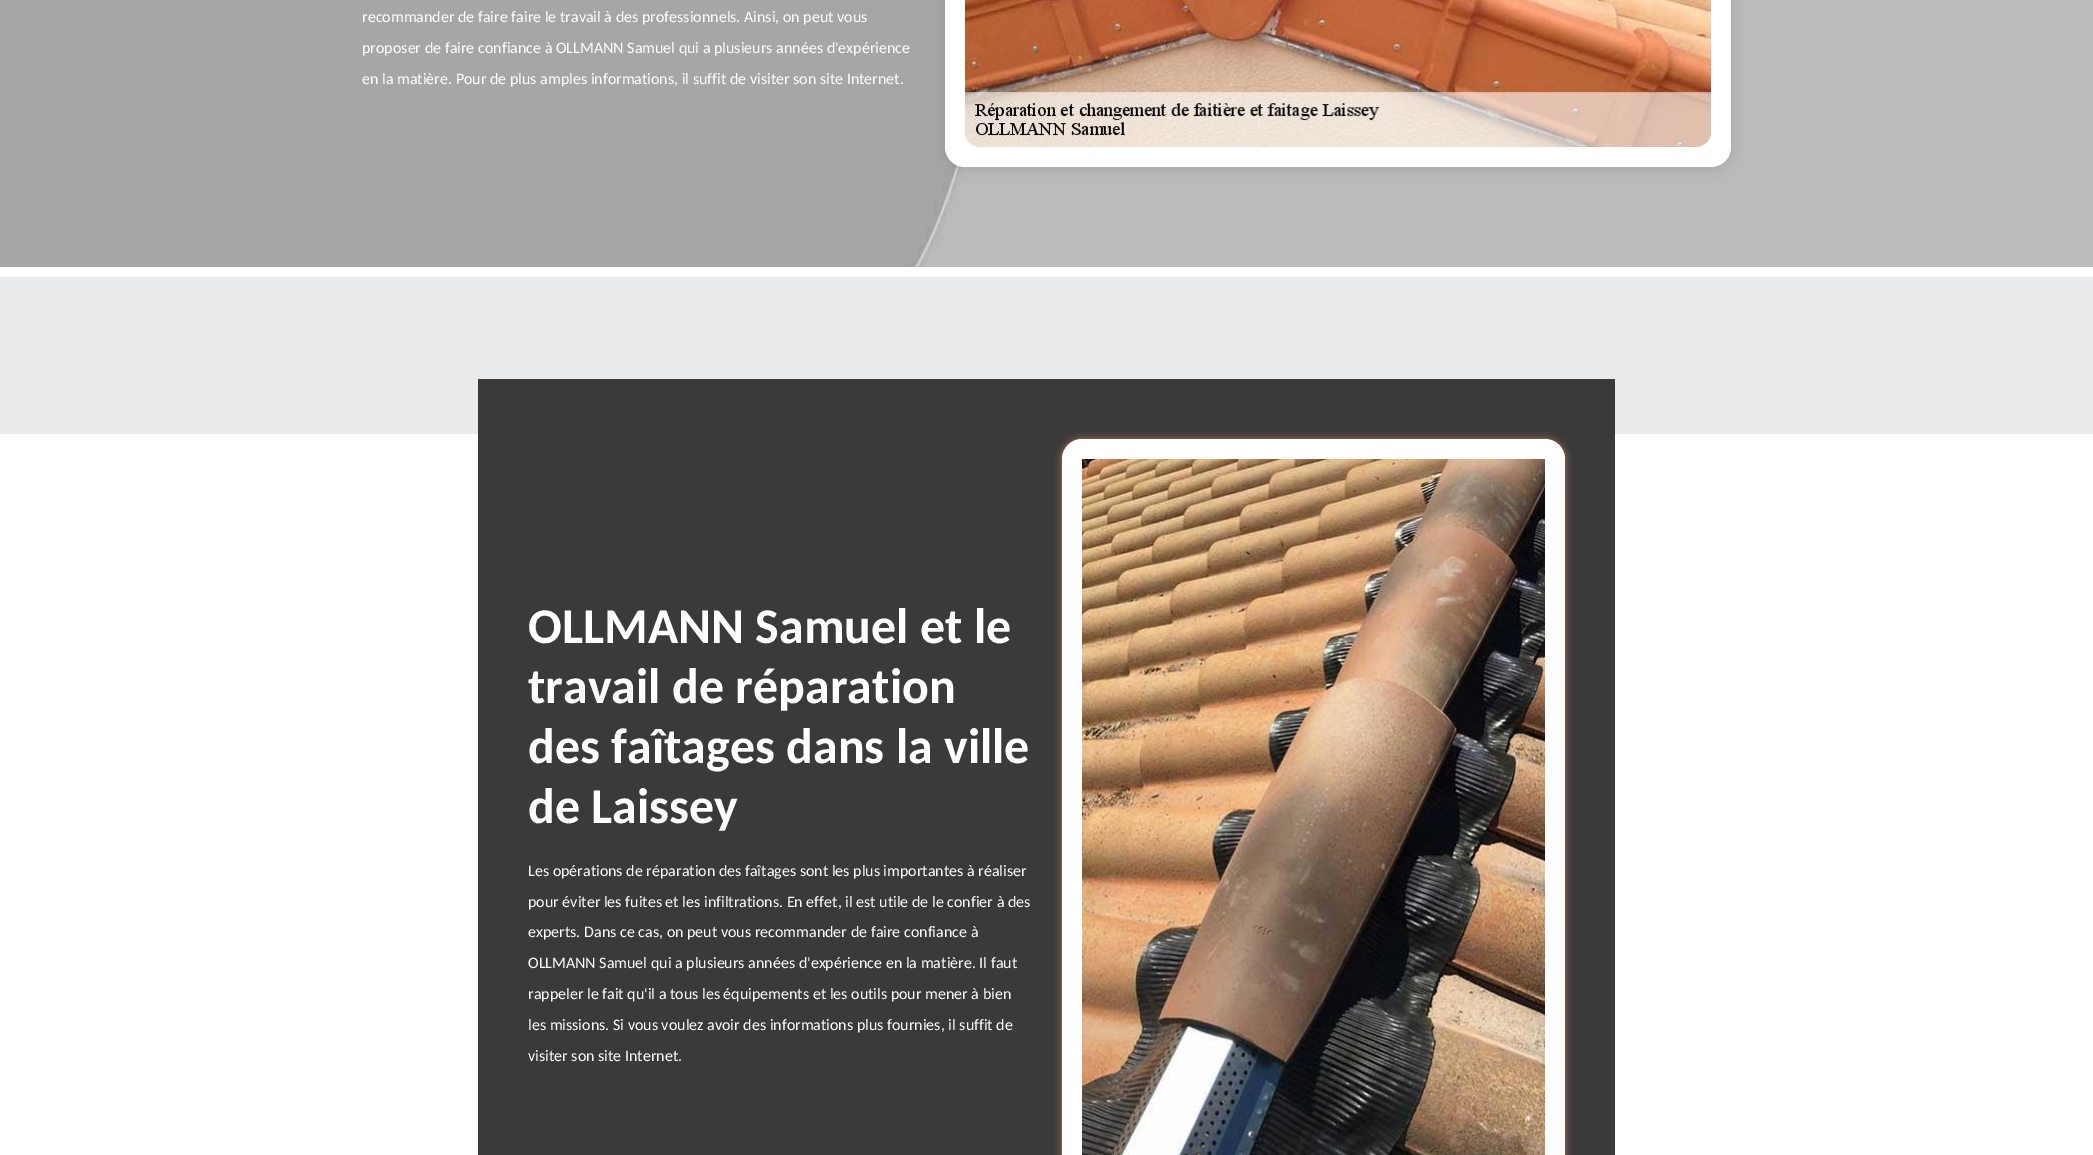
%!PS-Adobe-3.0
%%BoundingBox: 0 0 2093 1155
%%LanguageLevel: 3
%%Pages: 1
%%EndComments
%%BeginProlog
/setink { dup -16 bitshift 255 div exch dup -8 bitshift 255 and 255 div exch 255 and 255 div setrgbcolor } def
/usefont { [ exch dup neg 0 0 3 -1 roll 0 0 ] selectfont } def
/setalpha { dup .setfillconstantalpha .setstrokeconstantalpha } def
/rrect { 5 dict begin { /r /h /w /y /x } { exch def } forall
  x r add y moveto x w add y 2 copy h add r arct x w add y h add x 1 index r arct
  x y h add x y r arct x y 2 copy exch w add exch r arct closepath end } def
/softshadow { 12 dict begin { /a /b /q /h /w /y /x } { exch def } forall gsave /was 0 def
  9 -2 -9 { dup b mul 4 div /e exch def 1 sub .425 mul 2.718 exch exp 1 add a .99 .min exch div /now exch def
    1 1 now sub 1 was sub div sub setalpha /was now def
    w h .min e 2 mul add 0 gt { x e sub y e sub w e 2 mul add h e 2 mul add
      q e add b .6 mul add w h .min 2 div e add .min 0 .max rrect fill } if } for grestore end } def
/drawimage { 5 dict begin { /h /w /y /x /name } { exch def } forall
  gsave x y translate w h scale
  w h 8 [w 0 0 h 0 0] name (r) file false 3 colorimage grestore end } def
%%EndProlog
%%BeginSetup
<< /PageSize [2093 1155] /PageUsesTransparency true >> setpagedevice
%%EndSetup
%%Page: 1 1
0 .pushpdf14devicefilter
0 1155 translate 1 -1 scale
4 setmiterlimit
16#FFFFFF setink
0 0 2093 1155 rectfill
(img1.raw) 0 0 2093 267 drawimage
/Carlito-Regular 16 usefont
[
    [(recommander de faire faire le travail à des professionnels. Ainsi, on peut vous) 362 22]
    [(proposer de faire confiance à OLLMANN Samuel qui a plusieurs années d'expérience) 362 53]
    [(en la matière. Pour de plus amples informations, il suffit de visiter son site Internet.) 362 84]
] { aload pop moveto show } forall
16#000000 setink
946 -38 786 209 20 6 0.09 softshadow
16#FFFFFF setink
945 -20 786 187 20 rrect fill
16#DDDDDD setink
965 -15 746 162 15 rrect fill
(img2.raw) 965 0 746 147 drawimage
16#E9EBED setink
0 277 2093 157 rectfill
16#3A3A3A setink
478 379 1137 776 rectfill
/Carlito-Bold 50 usefont
16#FFFFFF setink
[
    [(OLLMANN Samuel et le) 528 643]
    [(travail de réparation) 528 703]
    [(des faîtages dans la ville) 528 763]
    [(de Laissey) 528 823]
] { aload pop moveto show } forall
/Carlito-Regular 16 usefont
[
    [(Les opérations de réparation des faîtages sont les plus importantes à réaliser) 528 876]
    [(pour éviter les fuites et les infiltrations. En effet, il est utile de le confier à des) 528 907]
    [(experts. Dans ce cas, on peut vous recommander de faire confiance à) 528 937]
    [(OLLMANN Samuel qui a plusieurs années d'expérience en la matière. Il faut) 528 968]
    [(rappeler le fait qu'il a tous les équipements et les outils pour mener à bien) 528 999]
    [(les missions. Si vous voulez avoir des informations plus fournies, il suffit de) 528 1030]
    [(visiter son site Internet.) 528 1061]
] { aload pop moveto show } forall
16#B9755C setink
1062 439 503 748 20 4 1 softshadow
16#FFFFFF setink
1062 439 503 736 20 rrect fill
(img3.raw) 1082 459 463 696 drawimage
.poppdf14devicefilter showpage
%%EOF
